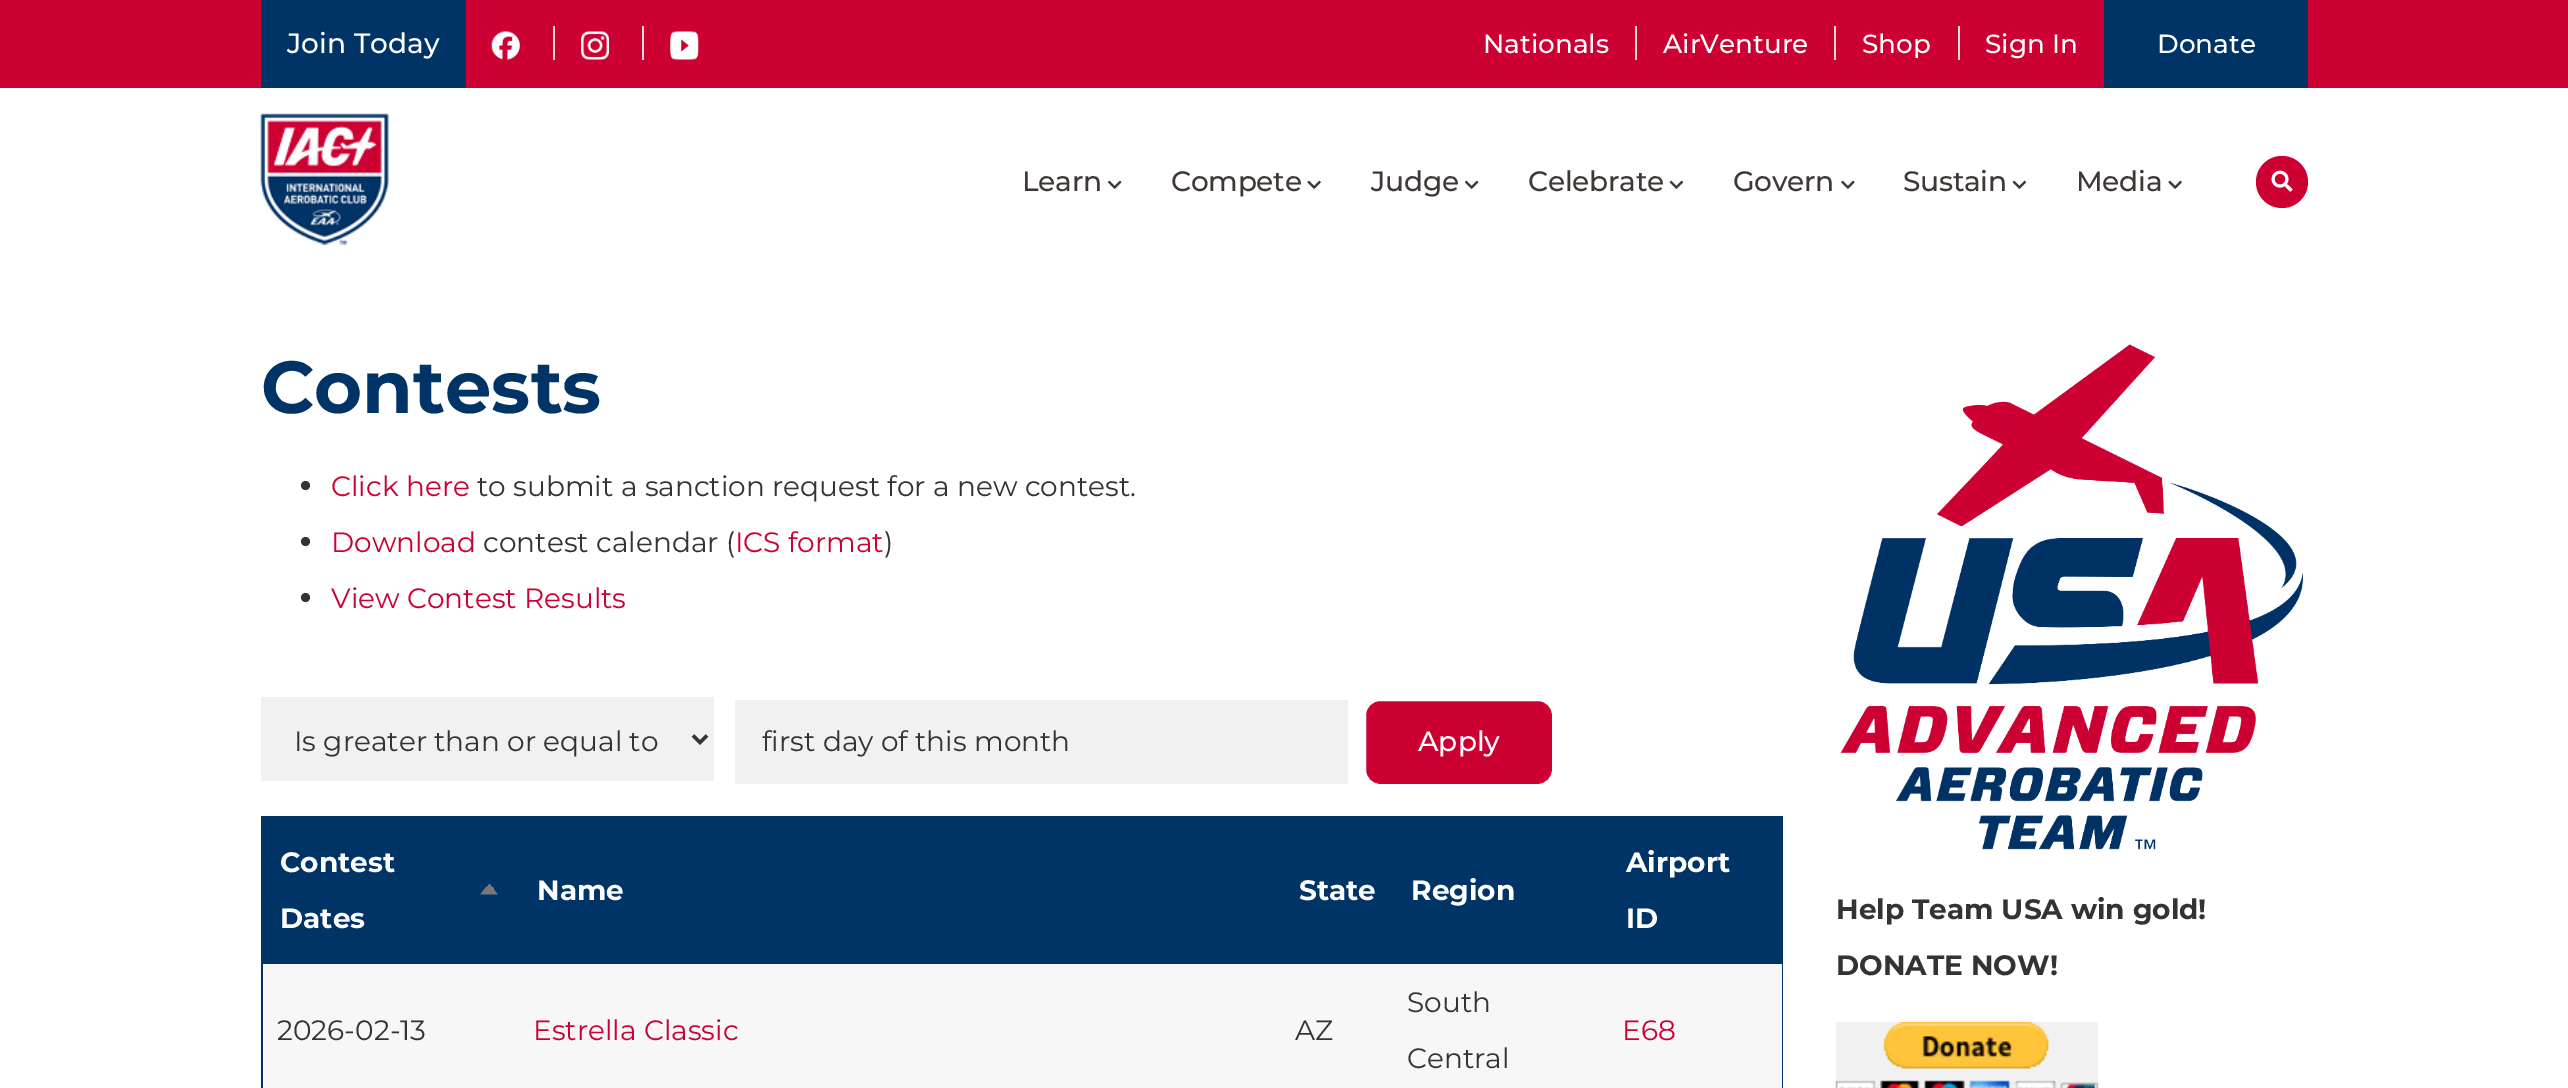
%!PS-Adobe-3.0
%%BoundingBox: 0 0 2568 1088
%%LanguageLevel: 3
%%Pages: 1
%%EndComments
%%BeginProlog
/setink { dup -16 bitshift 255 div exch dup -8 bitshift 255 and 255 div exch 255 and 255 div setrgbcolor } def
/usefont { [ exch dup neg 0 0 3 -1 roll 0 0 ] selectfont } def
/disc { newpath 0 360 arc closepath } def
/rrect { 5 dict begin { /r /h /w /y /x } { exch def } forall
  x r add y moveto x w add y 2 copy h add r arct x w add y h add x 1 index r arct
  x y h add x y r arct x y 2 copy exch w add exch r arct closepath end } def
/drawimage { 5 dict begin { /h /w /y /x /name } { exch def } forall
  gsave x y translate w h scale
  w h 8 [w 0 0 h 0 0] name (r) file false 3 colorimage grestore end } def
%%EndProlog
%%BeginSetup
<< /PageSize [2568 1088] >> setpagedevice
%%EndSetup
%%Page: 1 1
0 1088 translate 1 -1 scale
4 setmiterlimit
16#FFFFFF setink
0 0 2568 1088 rectfill
16#CC0033 setink
0 0 2568 88 rectfill
16#003366 setink
261 0 205 88 rectfill
/Montserrat-Medium 28 usefont
16#FFFFFF setink
287 53 moveto (Join Today) show
(img1.raw) 491 31 29 29 drawimage
16#DDDDDD setink
553 26 2 34 rectfill
(img2.raw) 581 31 28 29 drawimage
642 26 2 34 rectfill
(img3.raw) 670 31 29 29 drawimage
/Montserrat-Medium 26.25 usefont
16#FFFFFF setink
1483 53 moveto (Nationals) show
1663 53 moveto (AirVenture) show
16#DDDDDD setink
1635 26 2 34 rectfill
16#FFFFFF setink
1862 53 moveto (Shop) show
16#DDDDDD setink
1834 26 2 34 rectfill
16#FFFFFF setink
1985 53 moveto (Sign In) show
16#DDDDDD setink
1958 26 2 34 rectfill
16#003366 setink
2104 0 204 88 rectfill
16#FFFFFF setink
2157 53 moveto (Donate) show
(img4.raw) 260 113 129 132 drawimage
/Montserrat-Medium 28 usefont
16#3F3836 setink
1022 191 moveto -0.25 0 (Learn) ashow
(img5.raw) 1108 180 14 9 drawimage
1171 191 moveto -0.25 0 (Compete) ashow
(img6.raw) 1307 180 14 9 drawimage
1371 191 moveto -0.25 0 (Judge) ashow
(img5.raw) 1465 180 14 9 drawimage
1528 191 moveto -0.25 0 (Celebrate) ashow
(img7.raw) 1669 180 15 9 drawimage
1733 191 moveto -0.25 0 (Govern) ashow
(img8.raw) 1841 180 14 9 drawimage
1903 191 moveto -0.25 0 (Sustain) ashow
(img7.raw) 2012 180 15 9 drawimage
2076 191 moveto -0.25 0 (Media) ashow
(img6.raw) 2168 180 14 9 drawimage
16#CC0033 setink
2282 182 26 disc fill
(img9.raw) 2271 170 22 22 drawimage
/Montserrat-Bold 73.5 usefont
16#003366 setink
261 413 moveto (Contests) show
16#333333 setink
305.5 485.5 4.5 disc fill
/Montserrat-Regular 28 usefont
16#CC0033 setink
331 496 moveto (Click here) show
16#333333 setink
477 496 moveto (to submit a sanction request for a new contest.) show
305.5 541.5 4.5 disc fill
16#CC0033 setink
331 552 moveto (Download) show
16#333333 setink
483 552 moveto (contest calendar \() show
16#CC0033 setink
735 552 moveto (ICS format) show
16#333333 setink
884 552 moveto (\)) show
305.5 597.5 4.5 disc fill
16#CC0033 setink
331 608 moveto (View Contest Results) show
16#F1F1F1 setink
261 697 453 84 rectfill
16#333333 setink
3.5 setlinewidth
693 735.5 moveto 700 742.5 lineto 707 735.5 lineto stroke
294 751 moveto (Is greater than or equal to) show
16#F1F1F1 setink
735 700 613 84 rectfill
16#333333 setink
762 751 moveto (first day of this month) show
16#CC0033 setink
1364 699 190 87 16 rrect gsave fill grestore
16#FFFFFF setink
4 setlinewidth
stroke
/Montserrat-Medium 28 usefont
1418 751 moveto (Apply) show
[
    [261 816 1522 2 16#003366]
    [1782 816 1 272 16#003366]
    [261 816 2 272 16#003366]
    [263 818 1519 146 16#003366]
] { aload pop setink rectfill } forall
/Montserrat-Bold 28 usefont
16#FFFFFF setink
280 872 moveto (Contest) show
(img10.raw) 480 883 18 12 drawimage
[
    [(Dates) 280 928]
    [(Name) 537 900]
    [(State) 1299 900]
    [(Region) 1411 900]
    [(Airport) 1626 872]
    [(ID) 1626 928]
] { aload pop moveto show } forall
16#F7F7F7 setink
263 964 1519 124 rectfill
/Montserrat-Regular 28 usefont
16#333333 setink
277 1040 moveto (2026-02-13) show
16#CC0033 setink
533 1040 moveto (Estrella Classic) show
16#333333 setink
[
    [(AZ) 1295 1040]
    [(South) 1407 1012]
    [(Central) 1407 1068]
] { aload pop moveto show } forall
16#CC0033 setink
1622 1040 moveto (E68) show
(img11.raw) 1840 344 463 506 drawimage
/Montserrat-Bold 28 usefont
16#333333 setink
1836 919 moveto (Help Team USA win gold!) show
1836 975 moveto (DONATE NOW!) show
16#F1F1F1 setink
1836 1022 262 66 rectfill
(img12.raw) 1835 1022 264 66 drawimage
showpage
%%EOF
